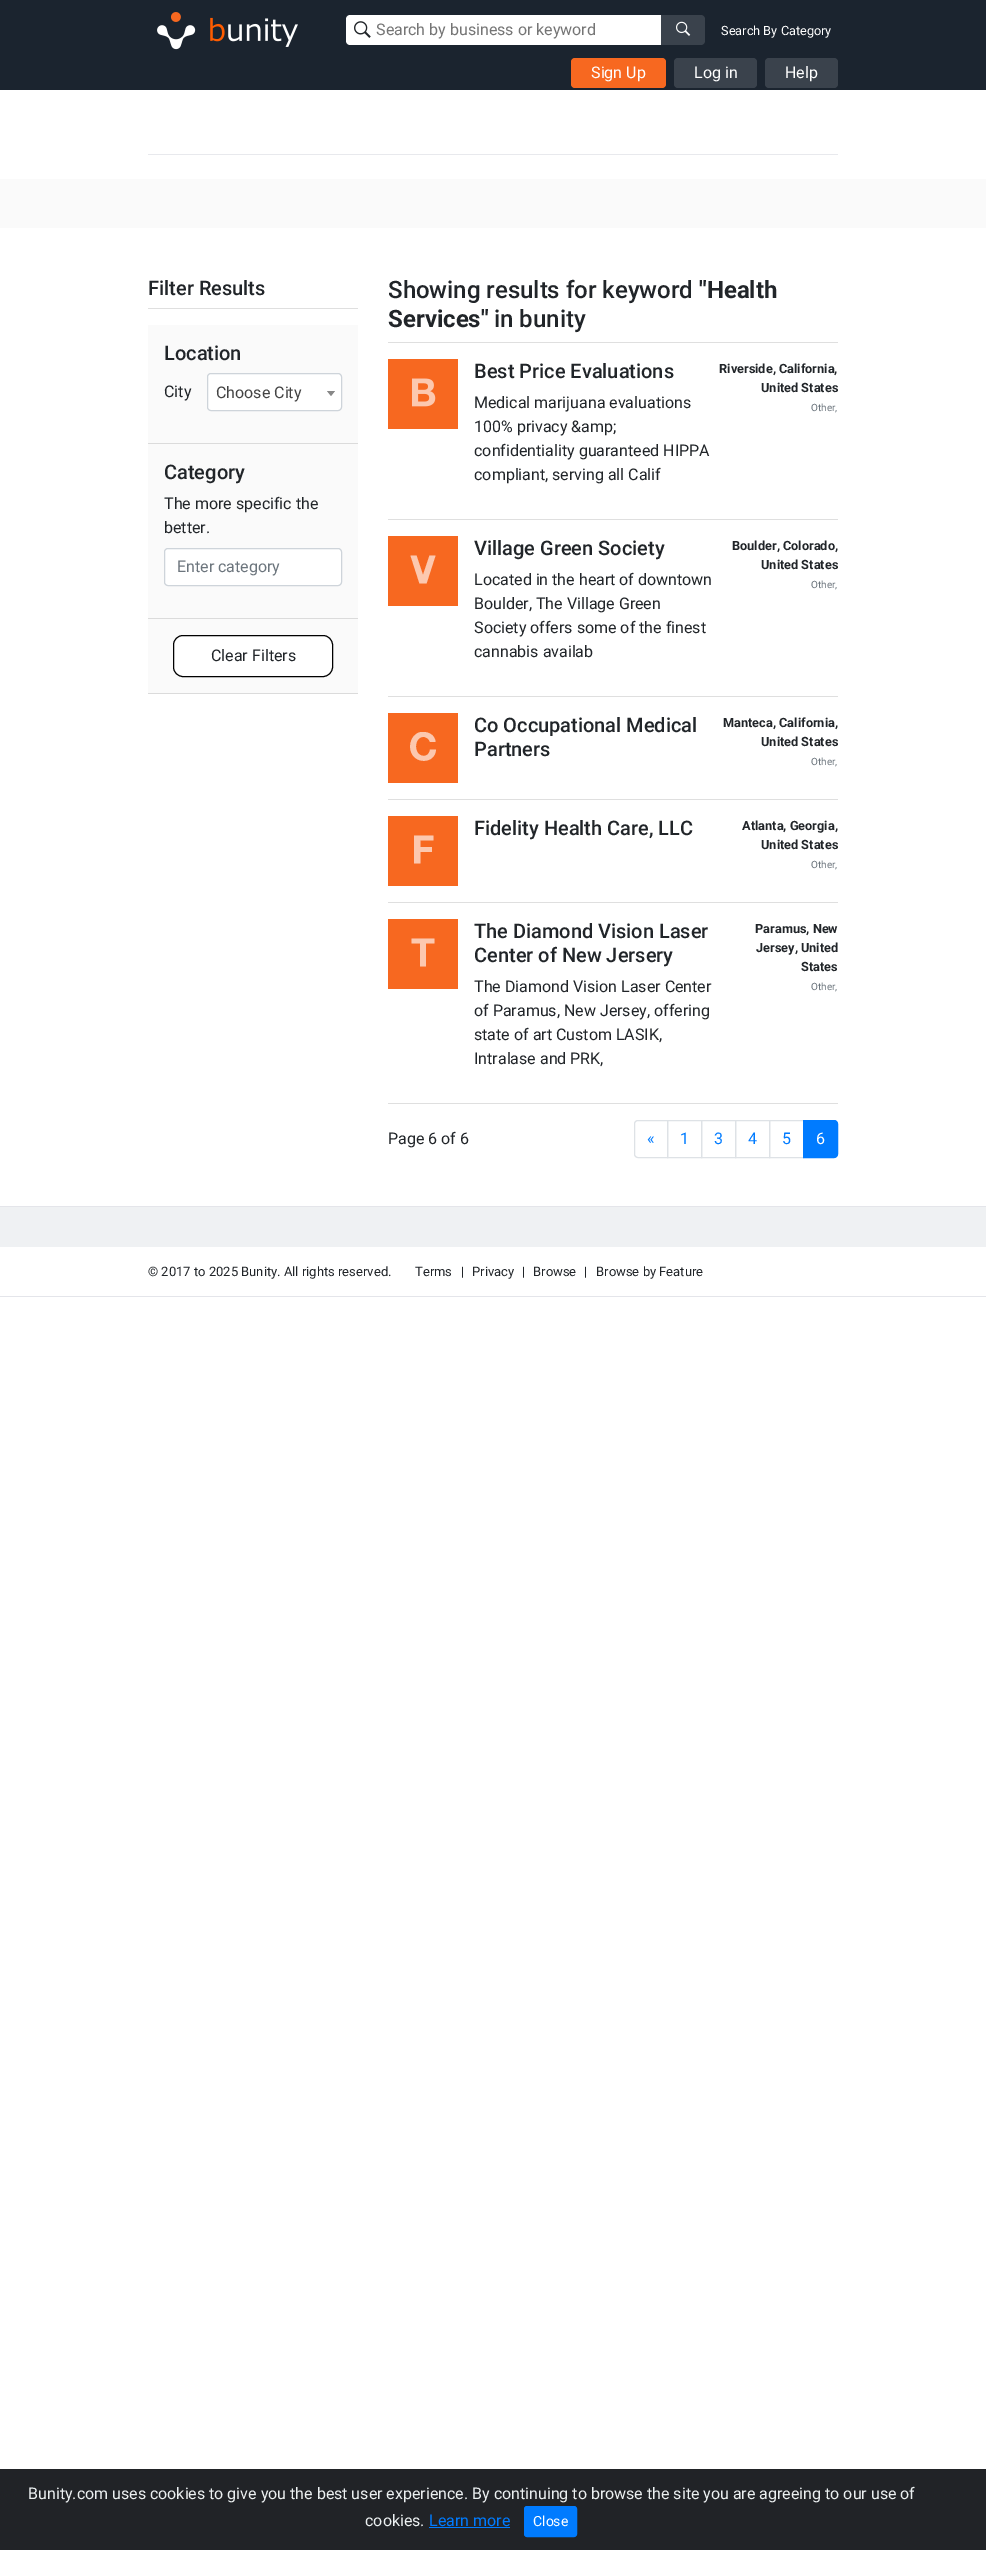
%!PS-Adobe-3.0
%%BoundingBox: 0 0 986 2550
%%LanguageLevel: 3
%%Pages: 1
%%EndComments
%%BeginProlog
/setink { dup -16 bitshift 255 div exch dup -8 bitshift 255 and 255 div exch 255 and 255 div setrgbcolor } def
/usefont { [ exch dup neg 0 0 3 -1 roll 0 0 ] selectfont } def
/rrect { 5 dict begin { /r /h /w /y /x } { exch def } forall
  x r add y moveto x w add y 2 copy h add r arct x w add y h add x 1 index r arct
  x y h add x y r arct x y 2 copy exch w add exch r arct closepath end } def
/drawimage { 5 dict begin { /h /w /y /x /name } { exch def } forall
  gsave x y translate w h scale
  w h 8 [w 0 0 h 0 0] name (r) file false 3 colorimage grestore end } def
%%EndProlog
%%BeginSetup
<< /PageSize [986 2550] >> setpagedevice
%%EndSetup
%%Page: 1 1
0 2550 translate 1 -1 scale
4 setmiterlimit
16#FFFFFF setink
0 0 986 2550 rectfill
16#1B242F setink
0 0 986 90 rectfill
(img1.raw) 157 12 141 38 drawimage
16#FFFFFF setink
350 15 moveto 661 15 lineto 661 45 lineto 350 45 lineto 348 45 346 43 346 41 curveto 346 19 lineto 346 17 348 15 350 15 curveto closepath fill
(img2.raw) 354 21 17 17 drawimage
/Roboto-Regular 16 usefont
16#757575 setink
376 35 moveto (Search by business or keyword) show
16#3A424C setink
661 15 moveto 701 15 lineto 703 15 705 17 705 19 curveto 705 41 lineto 705 43 703 45 701 45 curveto 661 45 lineto closepath fill
(img3.raw) 676 21 15 15 drawimage
/Roboto-Regular 12.75 usefont
16#FFFFFF setink
721 35 moveto (Search By Category) show
16#F76820 setink
571 58 95 30 4 rrect fill
/Roboto-Regular 16 usefont
16#FFFFFF setink
591 78 moveto (Sign Up) show
16#3A424C setink
674 58 83 30 4 rrect fill
16#FFFFFF setink
694 78 moveto (Log in) show
16#3A424C setink
765 58 73 30 4 rrect fill
16#FFFFFF setink
785 78 moveto (Help) show
[
    [148 154 690 1 16#E8E9ED]
    [0 179 986 49 16#FAFAFA]
    [148 308 210 1 16#DFDFDF]
] { aload pop setink rectfill } forall
/Roboto-Medium 20 usefont
16#212529 setink
148 295 moveto (Filter Results) show
16#FAFAFA setink
148 325 210 368 rectfill
16#DBDBDB setink
148 443 210 1 rectfill
16#212529 setink
164 360 moveto (Location) show
/Roboto-Regular 16 usefont
164 397 moveto (City) show
16#FFFFFF setink
207.5 373.5 134 37 3.5 rrect gsave fill grestore
16#CED4DA setink
stroke
16#444444 setink
216 398 moveto (Choose City) show
16#888888 setink
327 391 moveto 335 391 lineto 331 396 lineto closepath fill
16#DBDBDB setink
148 618 210 1 rectfill
/Roboto-Medium 20 usefont
16#212529 setink
164 479 moveto (Category) show
/Roboto-Regular 16 usefont
164 509 moveto (The more specific the) show
164 533 moveto (better.) show
16#FFFFFF setink
164.5 548.5 177 37 3.5 rrect gsave fill grestore
16#CED4DA setink
stroke
16#6C757D setink
177 572 moveto (Enter category) show
16#DBDBDB setink
148 693 210 1 rectfill
16#FFFFFF setink
173.5 635.5 159 41 9.5 rrect gsave fill grestore
16#000000 setink
stroke
16#212529 setink
211 661 moveto (Clear Filters) show
16#DFDFDF setink
388 342 450 1 rectfill
/Roboto-Medium 24 usefont
16#212529 setink
388 298 moveto (Showing results for keyword) show
/Roboto-Bold 24 usefont
699 298 moveto ("Health) show
388 327 moveto (Services") show
/Roboto-Medium 24 usefont
494 327 moveto (in bunity) show
16#DFDFDF setink
388 519 450 1 rectfill
(img4.raw) 388 359 70 70 drawimage
/Roboto-Medium 20 usefont
16#212529 setink
474 378 moveto (Best Price Evaluations) show
/Roboto-Regular 16 usefont
[
    [(Medical marijuana evaluations) 474 408]
    [(100% privacy &amp;) 474 432]
    [(confidentiality guaranteed HIPPA) 474 456]
    [(compliant, serving all Calif) 474 480]
] { aload pop moveto show } forall
/Roboto-Bold 12.75 usefont
719 373 moveto (Riverside, California,) show
761 392 moveto (United States) show
/Roboto-Regular 10 usefont
16#6C757D setink
811 411 moveto (Other,) show
16#DFDFDF setink
388 696 450 1 rectfill
16#F76820 setink
388 536 70 70 rectfill
16#FCC8AF setink
419.5 583.5 moveto 410.5 555.5 lineto 416.5 555.5 lineto 423 575 lineto 429.5 555.5 lineto 435.5 555.5 lineto 426.5 583.5 lineto closepath fill
/Roboto-Medium 20 usefont
16#212529 setink
474 555 moveto (Village Green Society) show
/Roboto-Regular 16 usefont
[
    [(Located in the heart of downtown) 474 585]
    [(Boulder, The Village Green) 474 609]
    [(Society offers some of the finest) 474 633]
    [(cannabis availab) 474 657]
] { aload pop moveto show } forall
/Roboto-Bold 12.75 usefont
732 550 moveto (Boulder, Colorado,) show
761 569 moveto (United States) show
/Roboto-Regular 10 usefont
16#6C757D setink
811 588 moveto (Other,) show
16#DFDFDF setink
388 799 450 1 rectfill
16#F76820 setink
388 713 70 70 rectfill
16#FCC8AF setink
429 740 moveto 428 738.5 426.5 737.5 424.5 737 curveto 414.5 735.5 413 753 421.5 755.5 curveto 426 757 429.5 754 430 749.5 curveto 436 749.5 lineto 435 764.5 413.5 764.5 410.5 750 curveto 410 747.5 410 744 411 741.5 curveto 412 737.5 415 734 419 732.5 curveto 426.5 730.5 435 734 435.5 742 curveto 430 742 lineto closepath fill
/Roboto-Medium 20 usefont
16#212529 setink
474 732 moveto (Co Occupational Medical) show
474 756 moveto (Partners) show
/Roboto-Bold 12.75 usefont
723 727 moveto (Manteca, California,) show
761 746 moveto (United States) show
/Roboto-Regular 10 usefont
16#6C757D setink
811 765 moveto (Other,) show
16#DFDFDF setink
388 902 450 1 rectfill
16#F76820 setink
388 816 70 70 rectfill
16#FCC8AF setink
433.5 835.5 moveto 433.5 840.5 lineto 420.5 840.5 lineto 420.5 847 lineto 432 847 lineto 432 852 lineto 420.5 852 lineto 420.5 863.5 lineto 414 863.5 lineto 414 835.5 lineto closepath fill
/Roboto-Medium 20 usefont
16#212529 setink
474 835 moveto (Fidelity Health Care, LLC) show
/Roboto-Bold 12.75 usefont
742 830 moveto (Atlanta, Georgia,) show
761 849 moveto (United States) show
/Roboto-Regular 10 usefont
16#6C757D setink
811 868 moveto (Other,) show
16#DFDFDF setink
388 1103 450 1 rectfill
16#F76820 setink
388 919 70 70 rectfill
16#FCC8AF setink
411.5 943.5 moveto 411.5 938.5 lineto 434.5 938.5 lineto 434.5 943.5 lineto 426 943.5 lineto 426 966.5 lineto 420 966.5 lineto 420 943.5 lineto closepath fill
/Roboto-Medium 20 usefont
16#212529 setink
474 938 moveto (The Diamond Vision Laser) show
474 962 moveto (Center of New Jersery) show
/Roboto-Regular 16 usefont
[
    [(The Diamond Vision Laser Center) 474 992]
    [(of Paramus, New Jersey, offering) 474 1016]
    [(state of art Custom LASIK,) 474 1040]
    [(Intralase and PRK,) 474 1064]
] { aload pop moveto show } forall
/Roboto-Bold 12.75 usefont
[
    [(Paramus, New) 755 933]
    [(Jersey, United) 756 952]
    [(States) 801 971]
] { aload pop moveto show } forall
/Roboto-Regular 10 usefont
16#6C757D setink
811 990 moveto (Other,) show
/Roboto-Regular 16 usefont
16#212529 setink
388 1144 moveto (Page 6 of 6) show
16#DEE2E6 setink
638 1120.5 moveto 667.5 1120.5 lineto 667.5 1157.5 lineto 638 1157.5 lineto 636 1157.5 634.5 1156 634.5 1154 curveto 634.5 1124 lineto 634.5 1122 636 1120.5 638 1120.5 curveto closepath stroke
16#007BFF setink
647 1144 moveto («) show
16#DEE2E6 setink
667.5 1120.5 34 37 rectstroke
16#007BFF setink
680 1144 moveto (1) show
16#DEE2E6 setink
701.5 1120.5 34 37 rectstroke
16#007BFF setink
714 1144 moveto (3) show
16#DEE2E6 setink
735.5 1120.5 34 37 rectstroke
16#007BFF setink
748 1144 moveto (4) show
16#DEE2E6 setink
769.5 1120.5 34 37 rectstroke
16#007BFF setink
782 1144 moveto (5) show
803.5 1120.5 moveto 834 1120.5 lineto 836 1120.5 837.5 1122 837.5 1124 curveto 837.5 1154 lineto 837.5 1156 836 1157.5 834 1157.5 curveto 803.5 1157.5 lineto closepath gsave fill grestore
stroke
16#FFFFFF setink
816 1144 moveto (6) show
[
    [0 1207 986 40 16#EFF1F3]
    [0 1206 986 1 16#E4E5EA]
    [0 1296 986 1 16#E4E5EA]
] { aload pop setink rectfill } forall
/Roboto-Regular 13 usefont
16#212529 setink
[
    [(© 2017 to 2025 Bunity. All rights reserved.) 148 1276]
    [(Terms) 415 1276]
    [(|) 461 1276]
    [(Privacy) 472 1276]
    [(|) 522 1276]
    [(Browse) 533 1276]
    [(|) 584 1276]
    [(Browse by Feature) 596 1276]
] { aload pop moveto show } forall
16#212327 setink
0 2469 986 81 rectfill
/Roboto-Regular 16 usefont
16#ECF0F1 setink
28 2499 moveto (Bunity.com uses cookies to give you the best user experience. By continuing to browse the site you are agreeing to our use of) show
365 2526 moveto (cookies.) show
16#007BFF setink
429 2526 moveto (Learn more) show
429 2527 81 1 rectfill
524.5 2506.5 52 30 2.5 rrect gsave fill grestore
stroke
/Roboto-Regular 14 usefont
16#FFFFFF setink
533 2526 moveto (Close) show
showpage
%%EOF
